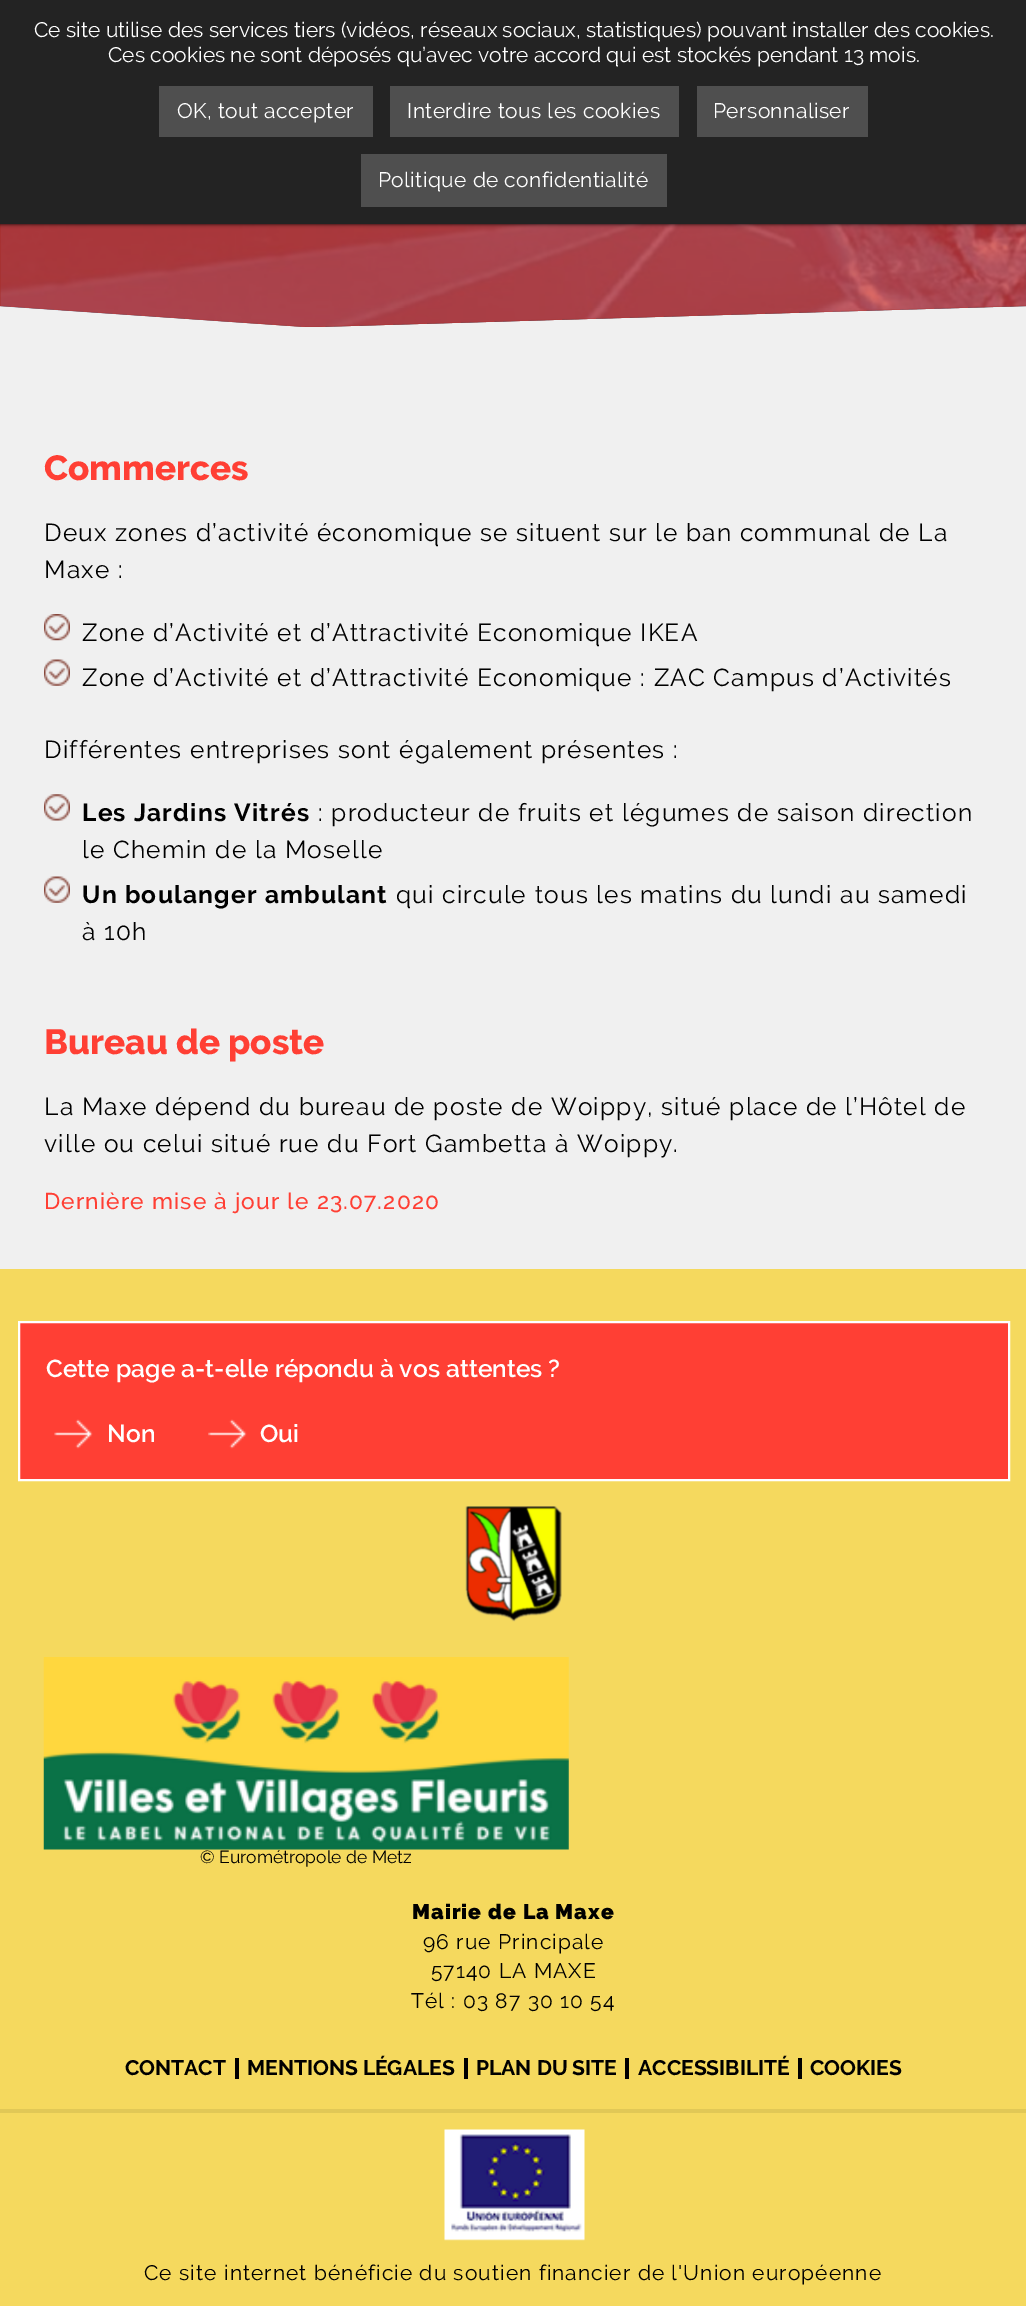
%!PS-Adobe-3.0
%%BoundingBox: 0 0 1026 2306
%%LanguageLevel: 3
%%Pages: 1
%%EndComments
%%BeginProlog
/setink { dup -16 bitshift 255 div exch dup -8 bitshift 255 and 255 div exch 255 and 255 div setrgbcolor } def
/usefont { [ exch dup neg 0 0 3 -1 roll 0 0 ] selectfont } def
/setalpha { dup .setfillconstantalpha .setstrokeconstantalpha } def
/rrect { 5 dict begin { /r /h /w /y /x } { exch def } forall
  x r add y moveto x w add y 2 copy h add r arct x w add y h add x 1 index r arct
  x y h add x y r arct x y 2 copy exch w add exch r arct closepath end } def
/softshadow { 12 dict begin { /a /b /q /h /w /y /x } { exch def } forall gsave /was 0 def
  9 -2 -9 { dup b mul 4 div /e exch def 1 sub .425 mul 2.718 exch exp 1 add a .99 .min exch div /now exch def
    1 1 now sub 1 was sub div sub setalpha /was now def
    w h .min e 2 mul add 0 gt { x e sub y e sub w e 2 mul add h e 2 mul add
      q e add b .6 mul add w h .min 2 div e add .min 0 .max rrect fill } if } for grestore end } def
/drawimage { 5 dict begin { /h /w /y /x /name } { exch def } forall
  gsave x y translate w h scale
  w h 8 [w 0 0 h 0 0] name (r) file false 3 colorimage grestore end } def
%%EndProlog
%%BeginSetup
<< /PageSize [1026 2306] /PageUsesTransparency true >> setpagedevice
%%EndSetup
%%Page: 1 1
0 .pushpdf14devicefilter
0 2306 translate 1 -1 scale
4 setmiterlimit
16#F5D95E setink
0 0 1026 2306 rectfill
16#F0F0F0 setink
0 306 1026 963 rectfill
16#000000 setink
0 -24 moveto 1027 -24 lineto 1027 306 lineto 317 327 lineto 305 327 lineto 0 306 lineto closepath fill
(img1.raw) 0 224 1026 103 drawimage
0.65 setalpha
16#FF3F34 setink
0 -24 moveto 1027 -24 lineto 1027 306 lineto 317 327 lineto 305 327 lineto 0 306 lineto closepath fill
1 setalpha
16#000000 setink
0 0 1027 224 0 2 1 softshadow
16#232323 setink
0 0 1026 224 rectfill
/Raleway-Regular 21 usefont
16#FFFFFF setink
34 37 moveto (Ce site utilise des services tiers \(vidéos, réseaux sociaux, statistiques\) pouvant installer des cookies.) show
108 62 moveto (Ces cookies ne sont déposés qu’avec votre accord qui est stockés pendant 13 mois.) show
16#4F4F4F setink
159 86 214 51 rectfill
16#FFFFFF setink
177 118 moveto 0.4 0 (OK, tout accepter) ashow
16#4F4F4F setink
390 86 289 51 rectfill
16#FFFFFF setink
407 118 moveto 0.4 0 (Interdire tous les cookies) ashow
16#4F4F4F setink
697 86 171 51 rectfill
16#FFFFFF setink
713 118 moveto 0.4 0 (Personnaliser) ashow
16#4F4F4F setink
361 154 306 53 rectfill
16#FFFFFF setink
378 187 moveto 0.4 0 (Politique de confidentialité) ashow
/Raleway-ExtraBold 35 usefont
16#FF3F34 setink
44 480 moveto (Commerces) show
/Raleway-Regular 24.5 usefont
16#000000 setink
44 541 moveto 1.22 0 (Deux zones d’activité économique se situent sur le ban communal de La) ashow
44 578 moveto 1.22 0 (Maxe :) ashow
(img2.raw) 44 614 26 27 drawimage
82 641 moveto 1.22 0 (Zone d’Activité et d’Attractivité Economique IKEA) ashow
(img3.raw) 44 659 26 27 drawimage
82 686 moveto 1.22 0 (Zone d’Activité et d’Attractivité Economique : ZAC Campus d’Activités) ashow
44 758 moveto 1.22 0 (Différentes entreprises sont également présentes :) ashow
(img4.raw) 44 794 26 27 drawimage
/Raleway-Bold 24.5 usefont
82 821 moveto 1.22 0 (Les Jardins Vitrés) ashow
/Raleway-Regular 24.5 usefont
318 821 moveto 1.22 0 (: producteur de fruits et légumes de saison direction) ashow
82 858 moveto 1.22 0 (le Chemin de la Moselle) ashow
(img5.raw) 44 876 26 27 drawimage
/Raleway-Bold 24.5 usefont
82 903 moveto 1.22 0 (Un boulanger ambulant) ashow
/Raleway-Regular 24.5 usefont
396 903 moveto 1.22 0 (qui circule tous les matins du lundi au samedi) ashow
82 940 moveto 1.22 0 (à 10h) ashow
/Raleway-ExtraBold 35 usefont
16#FF3F34 setink
44 1054 moveto (Bureau de poste) show
/Raleway-Regular 24.5 usefont
16#000000 setink
44 1115 moveto 1.22 0 (La Maxe dépend du bureau de poste de Woippy, situé place de l’Hôtel de) ashow
44 1152 moveto 1.22 0 (ville ou celui situé rue du Fort Gambetta à Woippy.) ashow
/Raleway-Medium 22.75 usefont
16#FF3F34 setink
44 1209 moveto 1.15 0 (Dernière mise à jour le 23.07.2020) ashow
19 1322 moveto 1009 1322 lineto 1009 1480 lineto 19 1480 lineto closepath gsave fill grestore
16#FFFFFF setink
2 setlinewidth
stroke
/Raleway-SemiBold 24.5 usefont
46 1377 moveto (Cette page a-t-elle répondu à vos attentes ?) show
(img6.raw) 54 1419 39 30 drawimage
107 1442 moveto (Non) show
(img7.raw) 208 1419 39 30 drawimage
260 1442 moveto (Oui) show
(img8.raw) 465 1506 97 116 drawimage
(img9.raw) 43 1657 526 193 drawimage
/Raleway-Regular 17.5 usefont
16#000000 setink
200 1863 moveto (© Eurométropole de Metz) show
/Raleway-Black 21 usefont
412 1919 moveto 1.05 0 (Mairie de La Maxe) ashow
/Raleway-Regular 21 usefont
423 1949 moveto 1.05 0 (96 rue Principale) ashow
431 1978 moveto 1.05 0 (57140 LA MAXE) ashow
411 2008 moveto 1.05 0 (Tél : 03 87 30 10 54) ashow
235 2058 4 21 rectfill
/Raleway-Bold 21 usefont
125 2075 moveto (CONTACT) show
464 2058 4 21 rectfill
247 2075 moveto (MENTIONS LÉGALES) show
625 2058 4 21 rectfill
476 2075 moveto (PLAN DU SITE) show
798 2058 4 21 rectfill
638 2075 moveto (ACCESSIBILITÉ) show
810 2075 moveto (COOKIES) show
16#E1C856 setink
0 2109 1026 4 rectfill
(img10.raw) 444 2129 141 112 drawimage
/Raleway-Regular 21 usefont
16#000000 setink
144 2280 moveto 1.05 0 (Ce site internet bénéficie du soutien financier de l'Union européenne) ashow
.poppdf14devicefilter showpage
%%EOF
